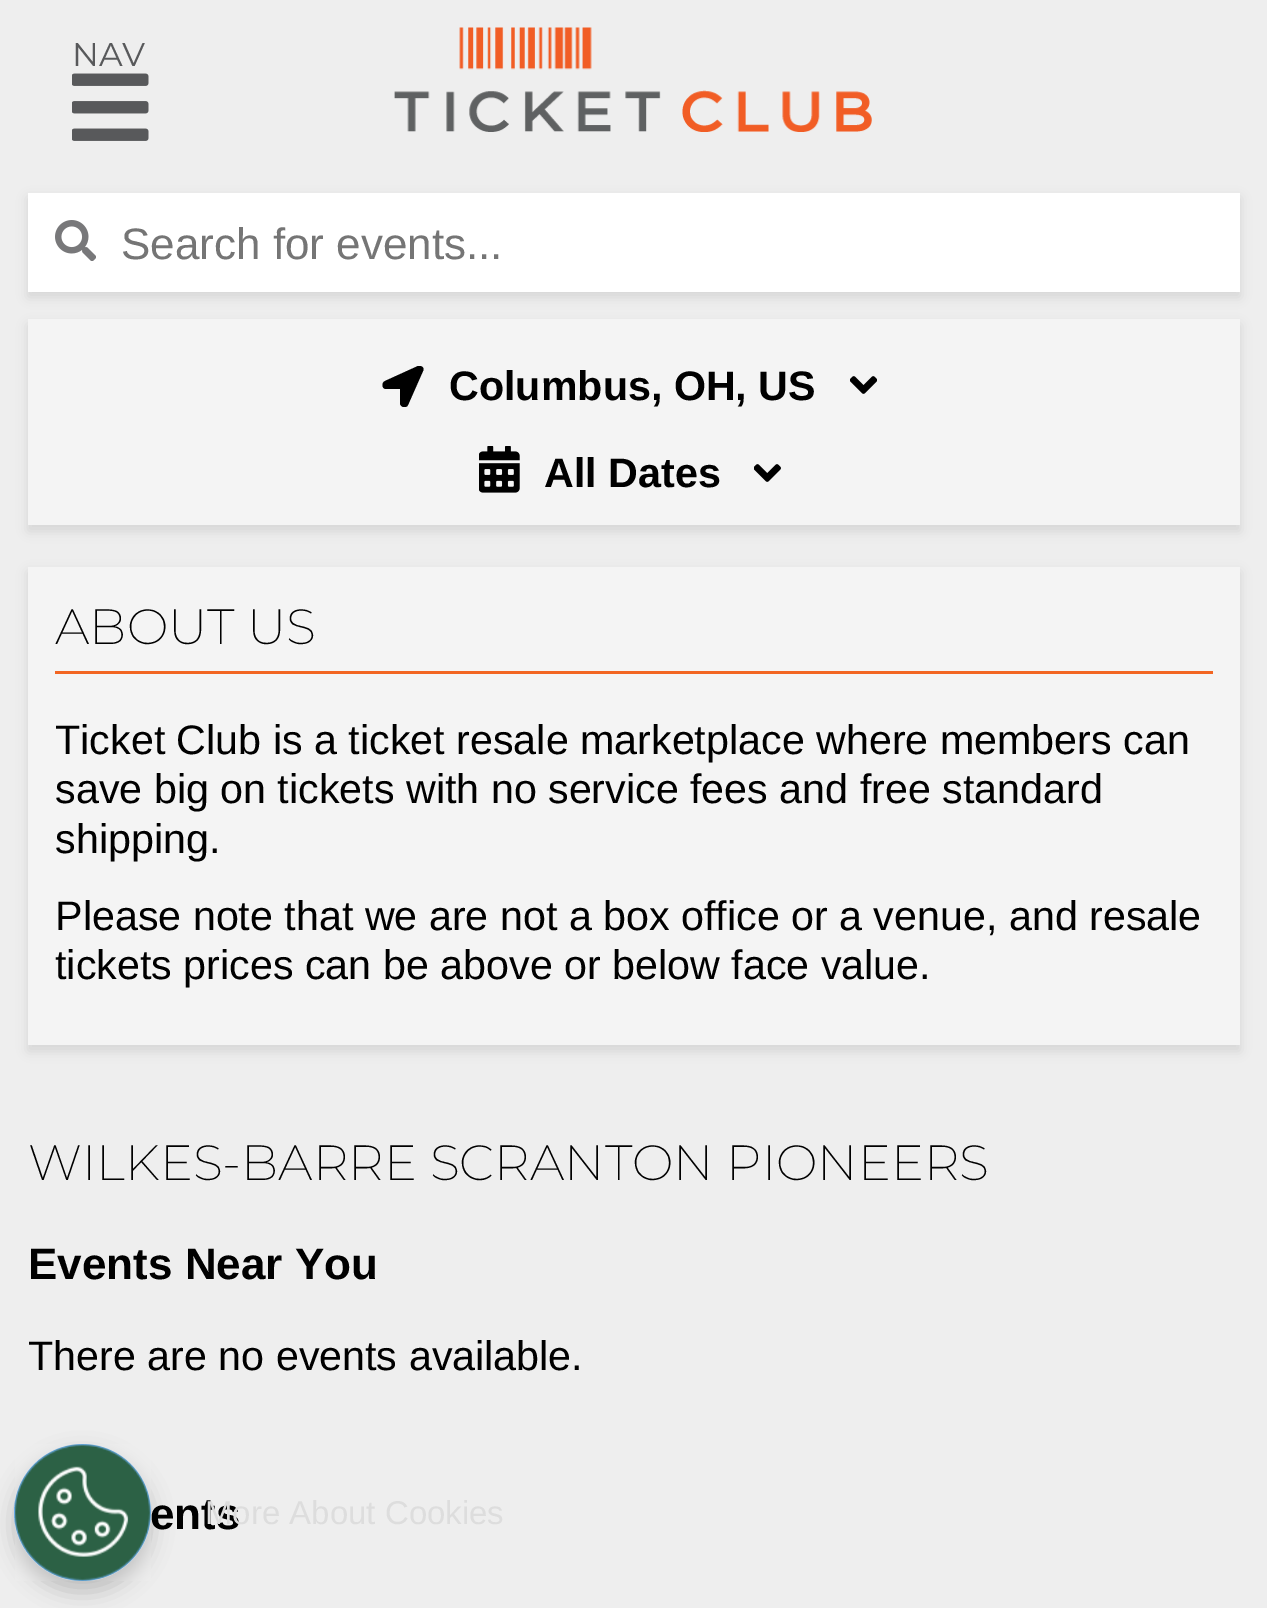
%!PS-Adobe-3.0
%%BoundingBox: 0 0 1267 1608
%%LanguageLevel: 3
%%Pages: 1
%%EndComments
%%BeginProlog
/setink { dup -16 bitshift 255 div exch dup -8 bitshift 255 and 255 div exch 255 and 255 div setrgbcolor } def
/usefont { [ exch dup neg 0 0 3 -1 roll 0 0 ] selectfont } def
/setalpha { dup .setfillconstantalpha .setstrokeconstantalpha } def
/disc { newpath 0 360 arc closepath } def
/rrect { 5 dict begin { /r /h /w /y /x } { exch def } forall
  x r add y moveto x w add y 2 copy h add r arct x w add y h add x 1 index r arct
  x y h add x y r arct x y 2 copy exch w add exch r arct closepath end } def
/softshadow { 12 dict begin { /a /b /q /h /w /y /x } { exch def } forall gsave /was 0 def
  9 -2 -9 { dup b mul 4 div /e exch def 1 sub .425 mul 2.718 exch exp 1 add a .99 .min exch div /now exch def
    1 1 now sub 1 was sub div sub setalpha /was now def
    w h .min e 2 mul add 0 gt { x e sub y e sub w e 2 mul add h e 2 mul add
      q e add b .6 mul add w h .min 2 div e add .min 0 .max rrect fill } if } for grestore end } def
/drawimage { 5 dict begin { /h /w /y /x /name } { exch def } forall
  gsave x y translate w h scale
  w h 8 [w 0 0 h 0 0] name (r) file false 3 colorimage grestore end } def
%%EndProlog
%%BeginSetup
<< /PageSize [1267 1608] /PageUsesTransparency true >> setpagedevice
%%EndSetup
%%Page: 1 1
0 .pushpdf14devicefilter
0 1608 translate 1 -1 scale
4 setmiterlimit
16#EEEEEE setink
0 0 1267 1608 rectfill
/Montserrat-Regular 33 usefont
16#58595B setink
72 66 moveto (NAV) show
(img1.raw) 72 73 77 68 drawimage
(img2.raw) 394 27 478 105 drawimage
16#000000 setink
28 198 1212 99 0 5.5 0.1 softshadow
16#FFFFFF setink
28 193 1212 99 rectfill
(img3.raw) 55 220 41 41 drawimage
/LiberationSans-Regular 44 usefont
16#757575 setink
121 259 moveto (Search for events...) show
16#000000 setink
28 325 1212 206 0 5.5 0.1 softshadow
16#F4F4F4 setink
28 319 1212 206 rectfill
gsave
382 366 42 41 rectclip
16#000000 setink
418 366 moveto 385 381 lineto 381 383 382 389 386 389 curveto 400 389 lineto 400 403 lineto 400 407 406 409 408 405 curveto 423 371 lineto 425 368 421 365 418 366 curveto closepath fill
grestore
/LiberationSans-Bold 41.25 usefont
16#000000 setink
449 400 moveto (Columbus, OH, US) show
(img4.raw) 850 376 27 18 drawimage
(img5.raw) 479 446 41 47 drawimage
544 487 moveto (All Dates) show
(img6.raw) 754 464 27 18 drawimage
28 572 1212 479 0 5.5 0.1 softshadow
16#F4F4F4 setink
28 567 1212 478 rectfill
16#F26522 setink
55 671 1158 3 rectfill
/Montserrat-ExtraLight 49.5 usefont
16#000000 setink
55 644 moveto (ABOUT US) show
/LiberationSans-Regular 41.25 usefont
[
    [(Ticket Club is a ticket resale marketplace where members can) 55 754]
    [(save big on tickets with no service fees and free standard) 55 803]
    [(shipping.) 55 853]
    [(Please note that we are not a box office or a venue, and resale) 55 930]
    [(tickets prices can be above or below face value.) 55 979]
] { aload pop moveto show } forall
/Montserrat-ExtraLight 49.5 usefont
28 1180 moveto (WILKES-BARRE SCRANTON PIONEERS) show
/LiberationSans-Bold 44 usefont
28 1279 moveto (Events Near You) show
/LiberationSans-Regular 41.25 usefont
28 1370 moveto (There are no events available.) show
/LiberationSans-Bold 44 usefont
150 1529 moveto (ents) show
14 1455 137 137 68.5 11 0.2 softshadow
16#6AAAE4 setink
82.5 1512.5 68.5 disc fill
(img7.raw) 15 1444 136 137 drawimage
/LiberationSans-Regular 33 usefont
16#DDDDDD setink
205 1524 moveto (More About Cookies) show
.poppdf14devicefilter showpage
%%EOF
